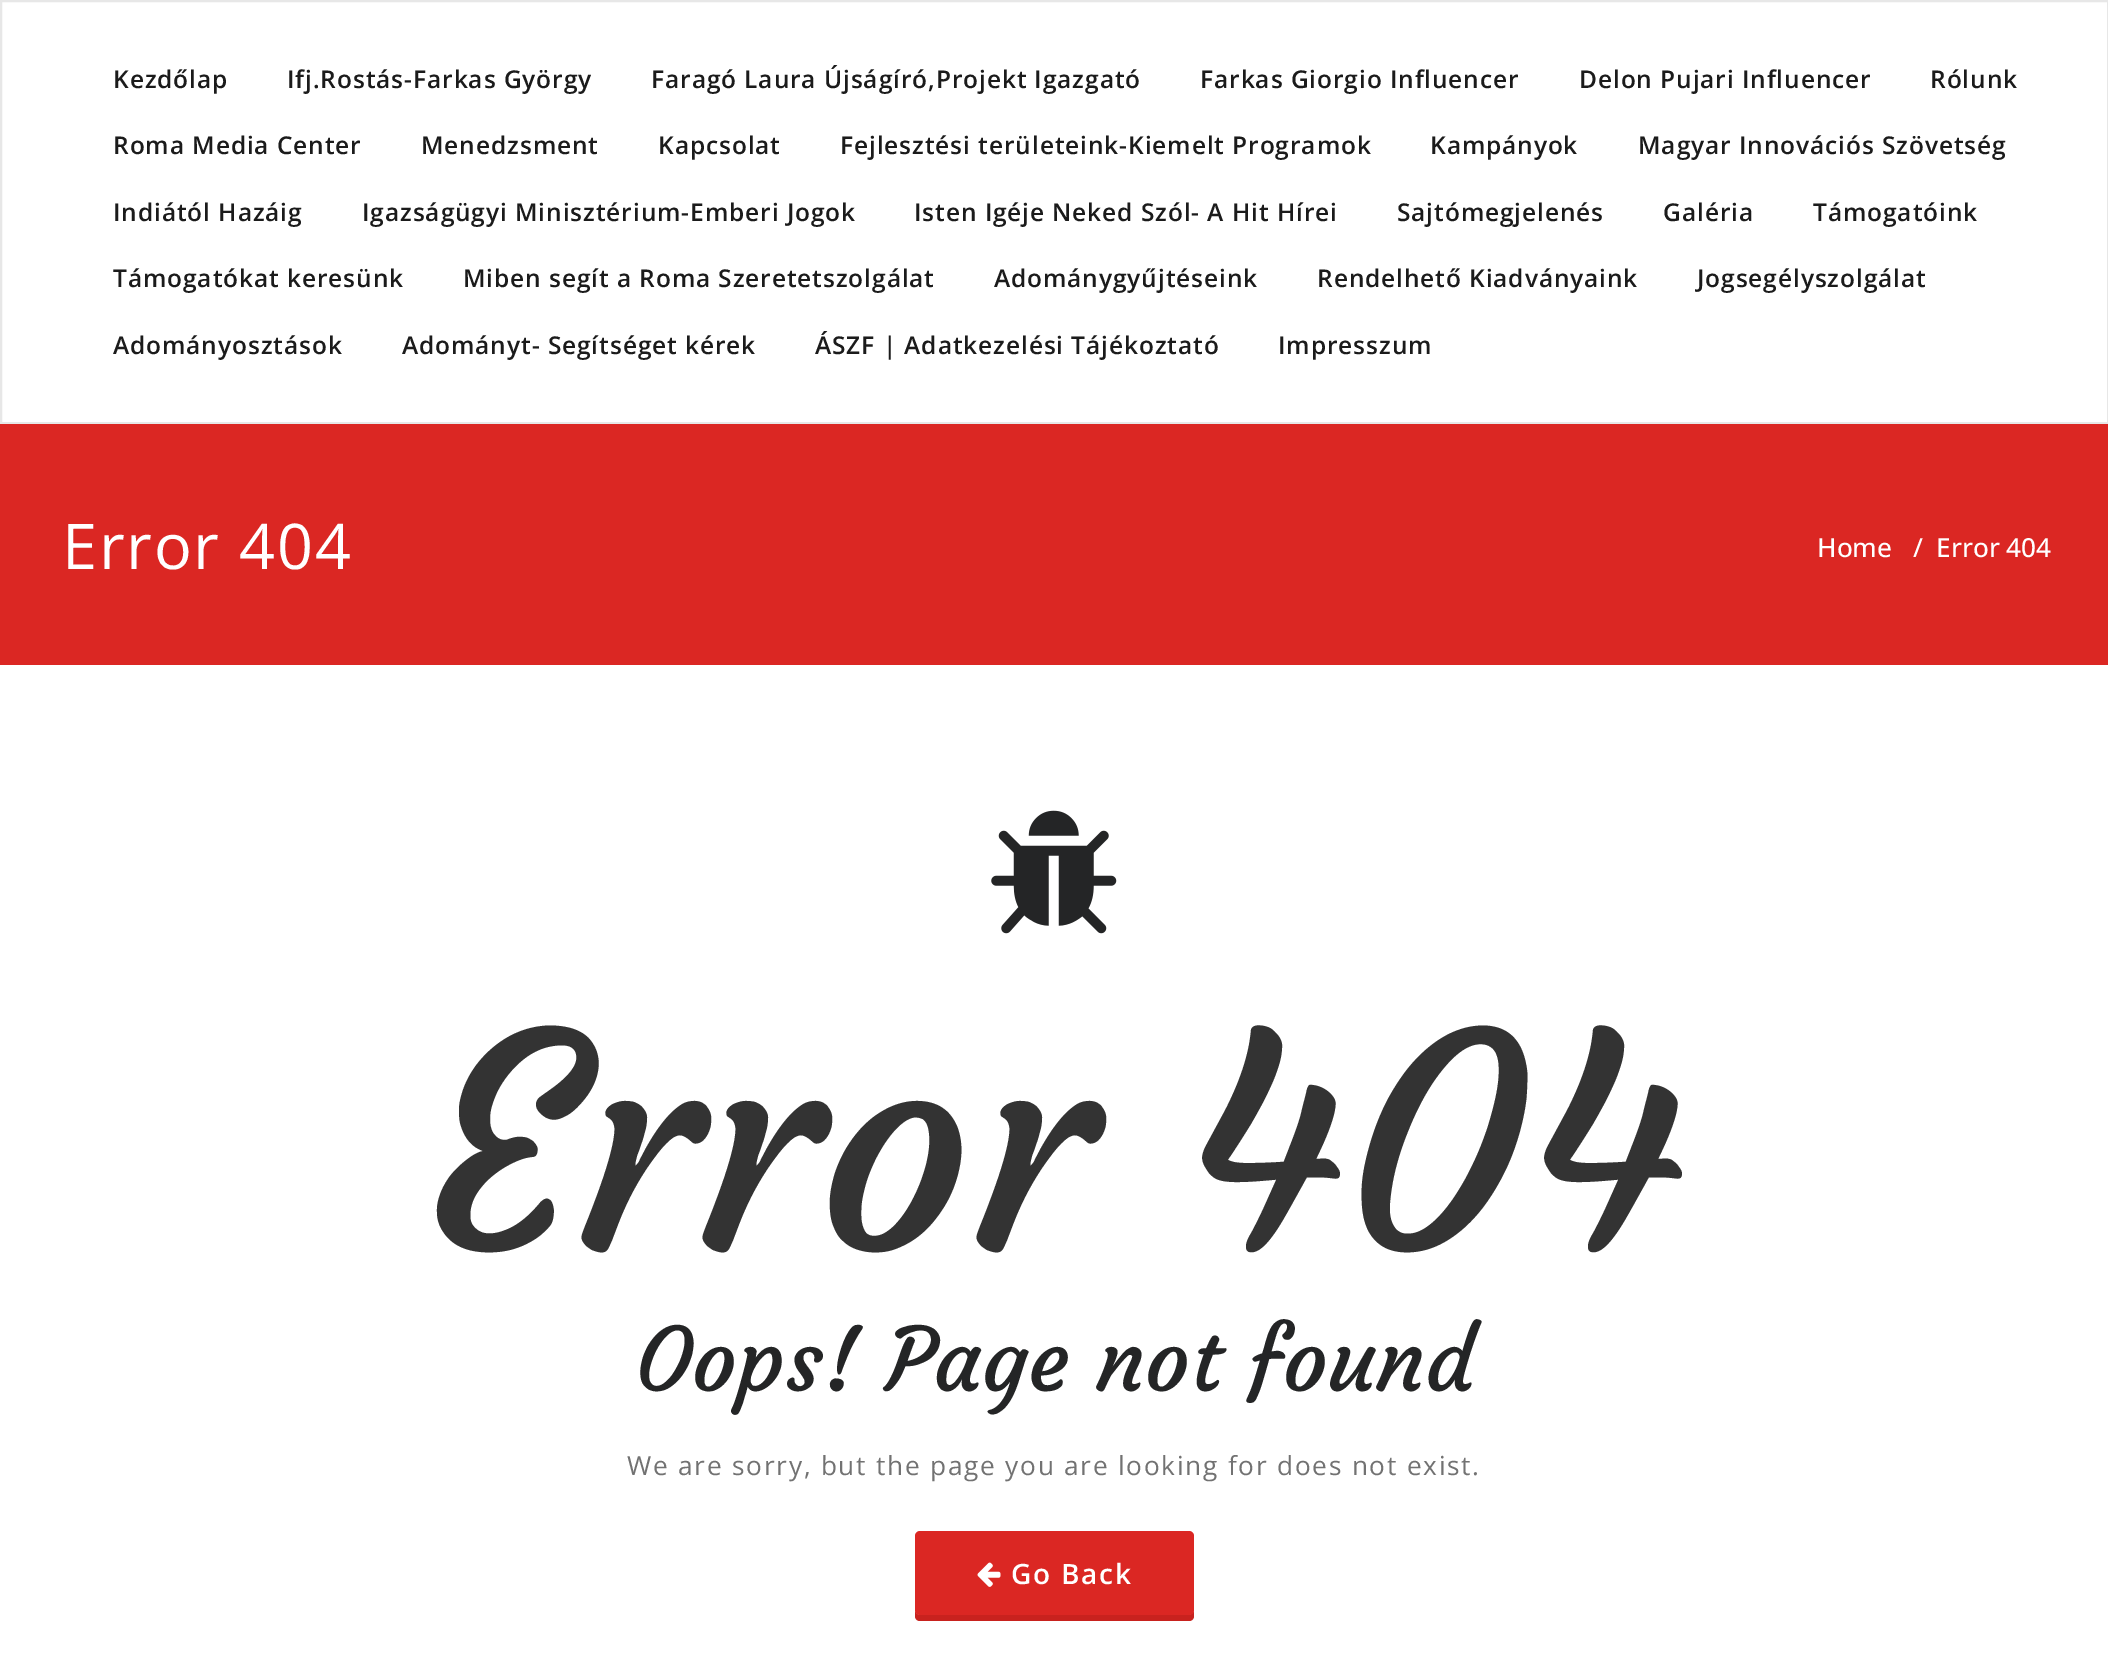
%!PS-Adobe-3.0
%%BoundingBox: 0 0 2108 1665
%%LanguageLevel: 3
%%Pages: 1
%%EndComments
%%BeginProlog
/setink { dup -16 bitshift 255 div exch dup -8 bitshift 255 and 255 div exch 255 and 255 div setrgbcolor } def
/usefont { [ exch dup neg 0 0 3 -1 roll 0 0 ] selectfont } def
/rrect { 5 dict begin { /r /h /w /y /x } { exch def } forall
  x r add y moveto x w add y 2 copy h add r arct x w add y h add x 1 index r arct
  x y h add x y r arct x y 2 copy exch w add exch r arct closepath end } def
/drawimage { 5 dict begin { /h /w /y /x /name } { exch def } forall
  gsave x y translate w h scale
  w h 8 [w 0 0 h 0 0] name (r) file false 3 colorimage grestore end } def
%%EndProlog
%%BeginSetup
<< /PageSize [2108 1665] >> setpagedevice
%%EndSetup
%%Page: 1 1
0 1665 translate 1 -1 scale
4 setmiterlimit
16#FFFFFF setink
0 0 2108 1665 rectfill
16#E7E7E7 setink
2 setlinewidth
1 1 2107 422 rectstroke
/OpenSans-SemiBold 24.5 usefont
16#1B1B1B setink
113 88 moveto 0.9 0 (Kezdőlap) ashow
287 88 moveto 0.9 0 (Ifj.Rostás-Farkas György) ashow
651 88 moveto 0.9 0 (Faragó Laura Újságíró,Projekt Igazgató) ashow
1200 88 moveto 0.9 0 (Farkas Giorgio Influencer) ashow
1579 88 moveto 0.9 0 (Delon Pujari Influencer) ashow
1930 88 moveto 0.9 0 (Rólunk) ashow
113 154 moveto 0.9 0 (Roma Media Center) ashow
421 154 moveto 0.9 0 (Menedzsment) ashow
658 154 moveto 0.9 0 (Kapcsolat) ashow
840 154 moveto 0.9 0 (Fejlesztési területeink-Kiemelt Programok) ashow
1430 154 moveto 0.9 0 (Kampányok) ashow
1638 154 moveto 0.9 0 (Magyar Innovációs Szövetség) ashow
113 221 moveto 0.9 0 (Indiától Hazáig) ashow
362 221 moveto 0.9 0 (Igazságügyi Minisztérium-Emberi Jogok) ashow
914 221 moveto 0.9 0 (Isten Igéje Neked Szól- A Hit Hírei) ashow
1397 221 moveto 0.9 0 (Sajtómegjelenés) ashow
1663 221 moveto 0.9 0 (Galéria) ashow
1813 221 moveto 0.9 0 (Támogatóink) ashow
113 287 moveto 0.9 0 (Támogatókat keresünk) ashow
463 287 moveto 0.9 0 (Miben segít a Roma Szeretetszolgálat) ashow
994 287 moveto 0.9 0 (Adománygyűjtéseink) ashow
1317 287 moveto 0.9 0 (Rendelhető Kiadványaink) ashow
1697 287 moveto 0.9 0 (Jogsegélyszolgálat) ashow
113 354 moveto 0.9 0 (Adományosztások) ashow
402 354 moveto 0.9 0 (Adományt- Segítséget kérek) ashow
815 354 moveto 0.9 0 (ÁSZF | Adatkezelési Tájékoztató) ashow
1278 354 moveto 0.9 0 (Impresszum) ashow
16#DB2723 setink
0 424 2108 241 rectfill
/OpenSans-Regular 63 usefont
16#FFFFFF setink
62 569 moveto 1.75 0 (Error 404) ashow
/OpenSans-Medium 26.25 usefont
[
    [(Home) 1817 557]
    [(/) 1913 557]
    [(Error 404) 1936 557]
] { aload pop moveto show } forall
(img1.raw) 991 810 126 124 drawimage
/Courgette-Regular 297.5 usefont
16#333333 setink
425 1251 moveto (Error 404) show
/Courgette-Regular 87.5 usefont
16#242526 setink
635 1391 moveto (Oops! Page not found) show
/OpenSans-Regular 26.25 usefont
16#727272 setink
627 1475 moveto 1.75 0 (We are sorry, but the page you are looking for does not exist.) ashow
16#C8221E setink
915 1540 moveto 915 1616 lineto 915 1619 917 1621 920 1621 curveto 1189 1621 lineto 1192 1621 1194 1619 1194 1616 curveto 1194 1542 lineto 1194 1540 lineto 1194 1610 lineto 1194 1613 1191 1615 1188 1615 curveto 920 1615 lineto 918 1615 915 1613 915 1610 curveto closepath fill
16#DB2723 setink
915 1531 279 84 5 rrect fill
(img2.raw) 977 1562 24 25 drawimage
/OpenSans-SemiBold 28 usefont
16#FFFFFF setink
1011 1584 moveto 1.75 0 (Go Back) ashow
showpage
%%EOF
